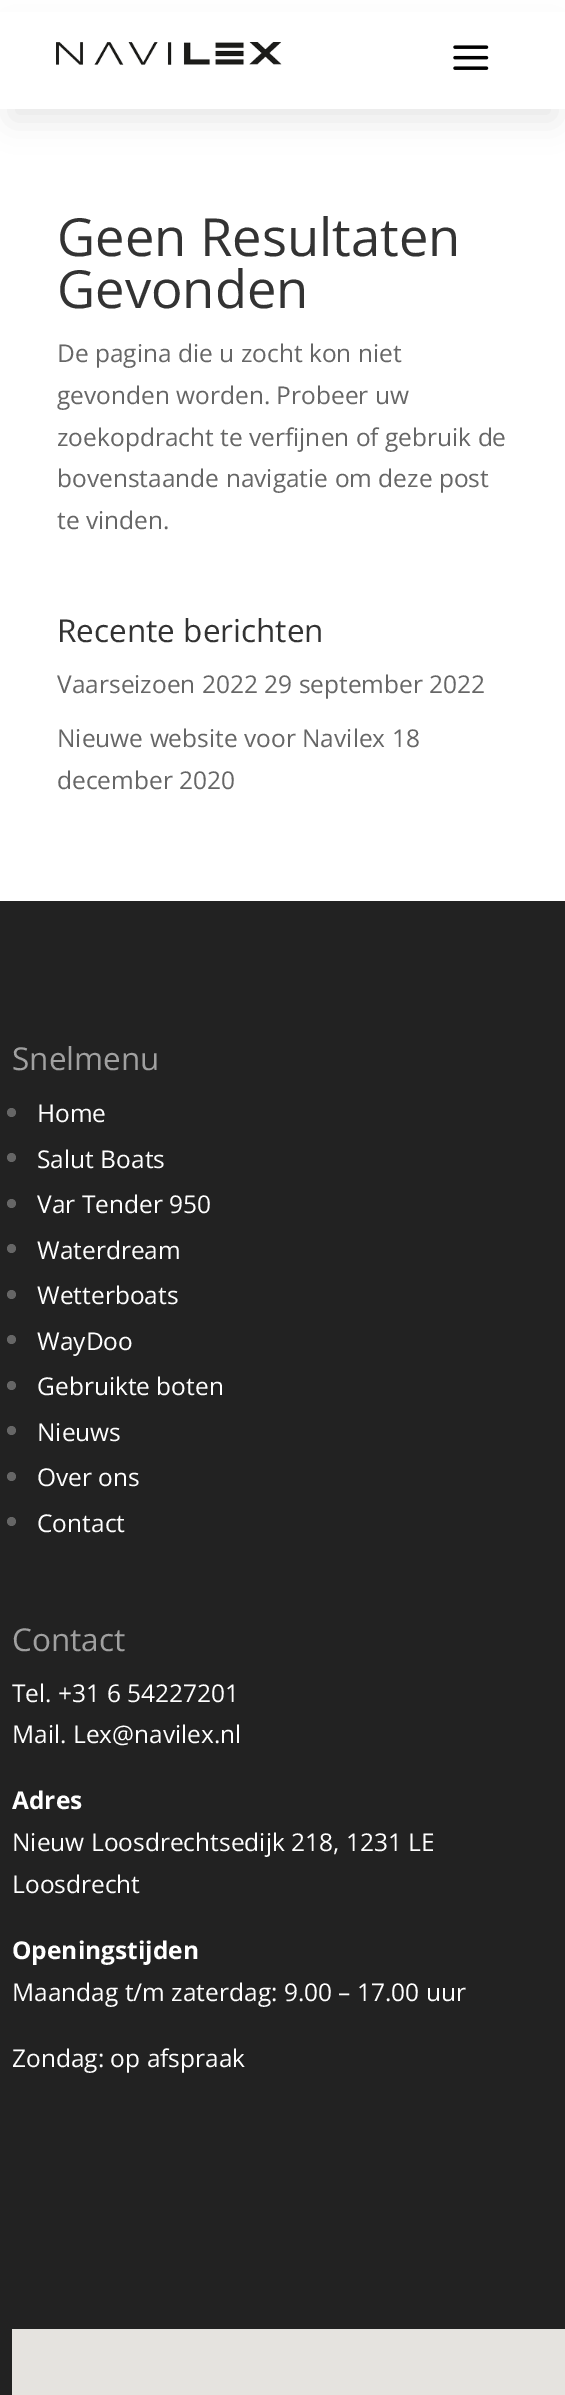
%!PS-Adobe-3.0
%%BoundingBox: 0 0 565 2395
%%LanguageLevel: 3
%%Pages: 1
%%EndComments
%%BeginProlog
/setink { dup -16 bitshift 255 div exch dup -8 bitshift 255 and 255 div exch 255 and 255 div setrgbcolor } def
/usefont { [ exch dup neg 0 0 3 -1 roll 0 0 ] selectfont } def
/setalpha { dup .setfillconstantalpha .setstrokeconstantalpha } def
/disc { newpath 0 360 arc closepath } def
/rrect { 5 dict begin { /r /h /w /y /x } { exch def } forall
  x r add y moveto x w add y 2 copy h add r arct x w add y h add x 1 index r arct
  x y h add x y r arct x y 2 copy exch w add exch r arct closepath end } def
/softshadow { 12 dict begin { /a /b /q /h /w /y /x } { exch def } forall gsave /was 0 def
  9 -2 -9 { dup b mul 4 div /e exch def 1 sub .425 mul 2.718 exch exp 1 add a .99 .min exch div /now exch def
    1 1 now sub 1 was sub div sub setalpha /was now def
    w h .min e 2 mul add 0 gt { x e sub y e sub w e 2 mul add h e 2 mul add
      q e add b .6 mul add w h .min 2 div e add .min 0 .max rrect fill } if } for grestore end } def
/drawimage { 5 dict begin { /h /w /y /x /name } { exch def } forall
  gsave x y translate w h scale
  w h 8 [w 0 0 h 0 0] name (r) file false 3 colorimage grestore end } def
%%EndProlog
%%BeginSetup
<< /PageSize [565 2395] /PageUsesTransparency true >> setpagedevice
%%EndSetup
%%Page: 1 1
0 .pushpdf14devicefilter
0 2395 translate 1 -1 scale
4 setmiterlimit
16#FFFFFF setink
0 0 565 2395 rectfill
16#000000 setink
11 32 544 87 0 16 0.1 softshadow
16#FFFFFF setink
0 12 565 97 rectfill
(img1.raw) 56 42 226 23 drawimage
(img2.raw) 453 45 36 25 drawimage
/OpenSans-Regular 52.5 usefont
16#333333 setink
57 256 moveto (Geen Resultaten) show
57 308 moveto (Gevonden) show
/OpenSans-Regular 24.5 usefont
16#666666 setink
[
    [(De pagina die u zocht kon niet) 57 362]
    [(gevonden worden. Probeer uw) 57 404]
    [(zoekopdracht te verfijnen of gebruik de) 57 446]
    [(bovenstaande navigatie om deze post) 57 487]
    [(te vinden.) 57 529]
] { aload pop moveto show } forall
/OpenSans-Regular 31.5 usefont
16#333333 setink
57 642 moveto (Recente berichten) show
/OpenSans-Regular 24.5 usefont
16#666666 setink
[
    [(Vaarseizoen 2022 29 september 2022) 57 693]
    [(Nieuwe website voor Navilex 18) 57 747]
    [(december 2020) 57 789]
] { aload pop moveto show } forall
16#222222 setink
0 901 565 1494 rectfill
/OpenSans-Regular 31.5 usefont
16#A0A0A0 setink
12 1070 moveto (Snelmenu) show
16#666666 setink
11.5 1112.5 4.5 disc fill
/OpenSans-Regular 24.5 usefont
16#FFFFFF setink
37 1122 moveto (Home) show
16#666666 setink
11.5 1157.5 4.5 disc fill
16#FFFFFF setink
37 1168 moveto (Salut Boats) show
16#666666 setink
11.5 1203.5 4.5 disc fill
16#FFFFFF setink
37 1213 moveto (Var Tender 950) show
16#666666 setink
11.5 1248.5 4.5 disc fill
16#FFFFFF setink
37 1259 moveto (Waterdream) show
16#666666 setink
11.5 1294.5 4.5 disc fill
16#FFFFFF setink
37 1304 moveto (Wetterboats) show
16#666666 setink
11.5 1339.5 4.5 disc fill
16#FFFFFF setink
37 1350 moveto (WayDoo) show
16#666666 setink
11.5 1385.5 4.5 disc fill
16#FFFFFF setink
37 1395 moveto (Gebruikte boten) show
16#666666 setink
11.5 1430.5 4.5 disc fill
16#FFFFFF setink
37 1441 moveto (Nieuws) show
16#666666 setink
11.5 1476.5 4.5 disc fill
16#FFFFFF setink
37 1486 moveto (Over ons) show
16#666666 setink
11.5 1521.5 4.5 disc fill
16#FFFFFF setink
37 1532 moveto (Contact) show
/OpenSans-Regular 31.5 usefont
16#A0A0A0 setink
12 1651 moveto (Contact) show
/OpenSans-Regular 24.5 usefont
16#FFFFFF setink
12 1702 moveto (Tel. +31 6 54227201) show
12 1743 moveto (Mail. Lex@navilex.nl) show
/OpenSans-Bold 24.5 usefont
12 1809 moveto (Adres) show
/OpenSans-Regular 24.5 usefont
12 1851 moveto (Nieuw Loosdrechtsedijk 218, 1231 LE) show
12 1893 moveto (Loosdrecht) show
/OpenSans-Bold 24.5 usefont
12 1959 moveto (Openingstijden) show
/OpenSans-Regular 24.5 usefont
12 2001 moveto (Maandag t/m zaterdag: 9.00 – 17.00 uur) show
12 2067 moveto (Zondag: op afspraak) show
16#E5E3DF setink
12 2329 553 66 rectfill
.poppdf14devicefilter showpage
%%EOF
